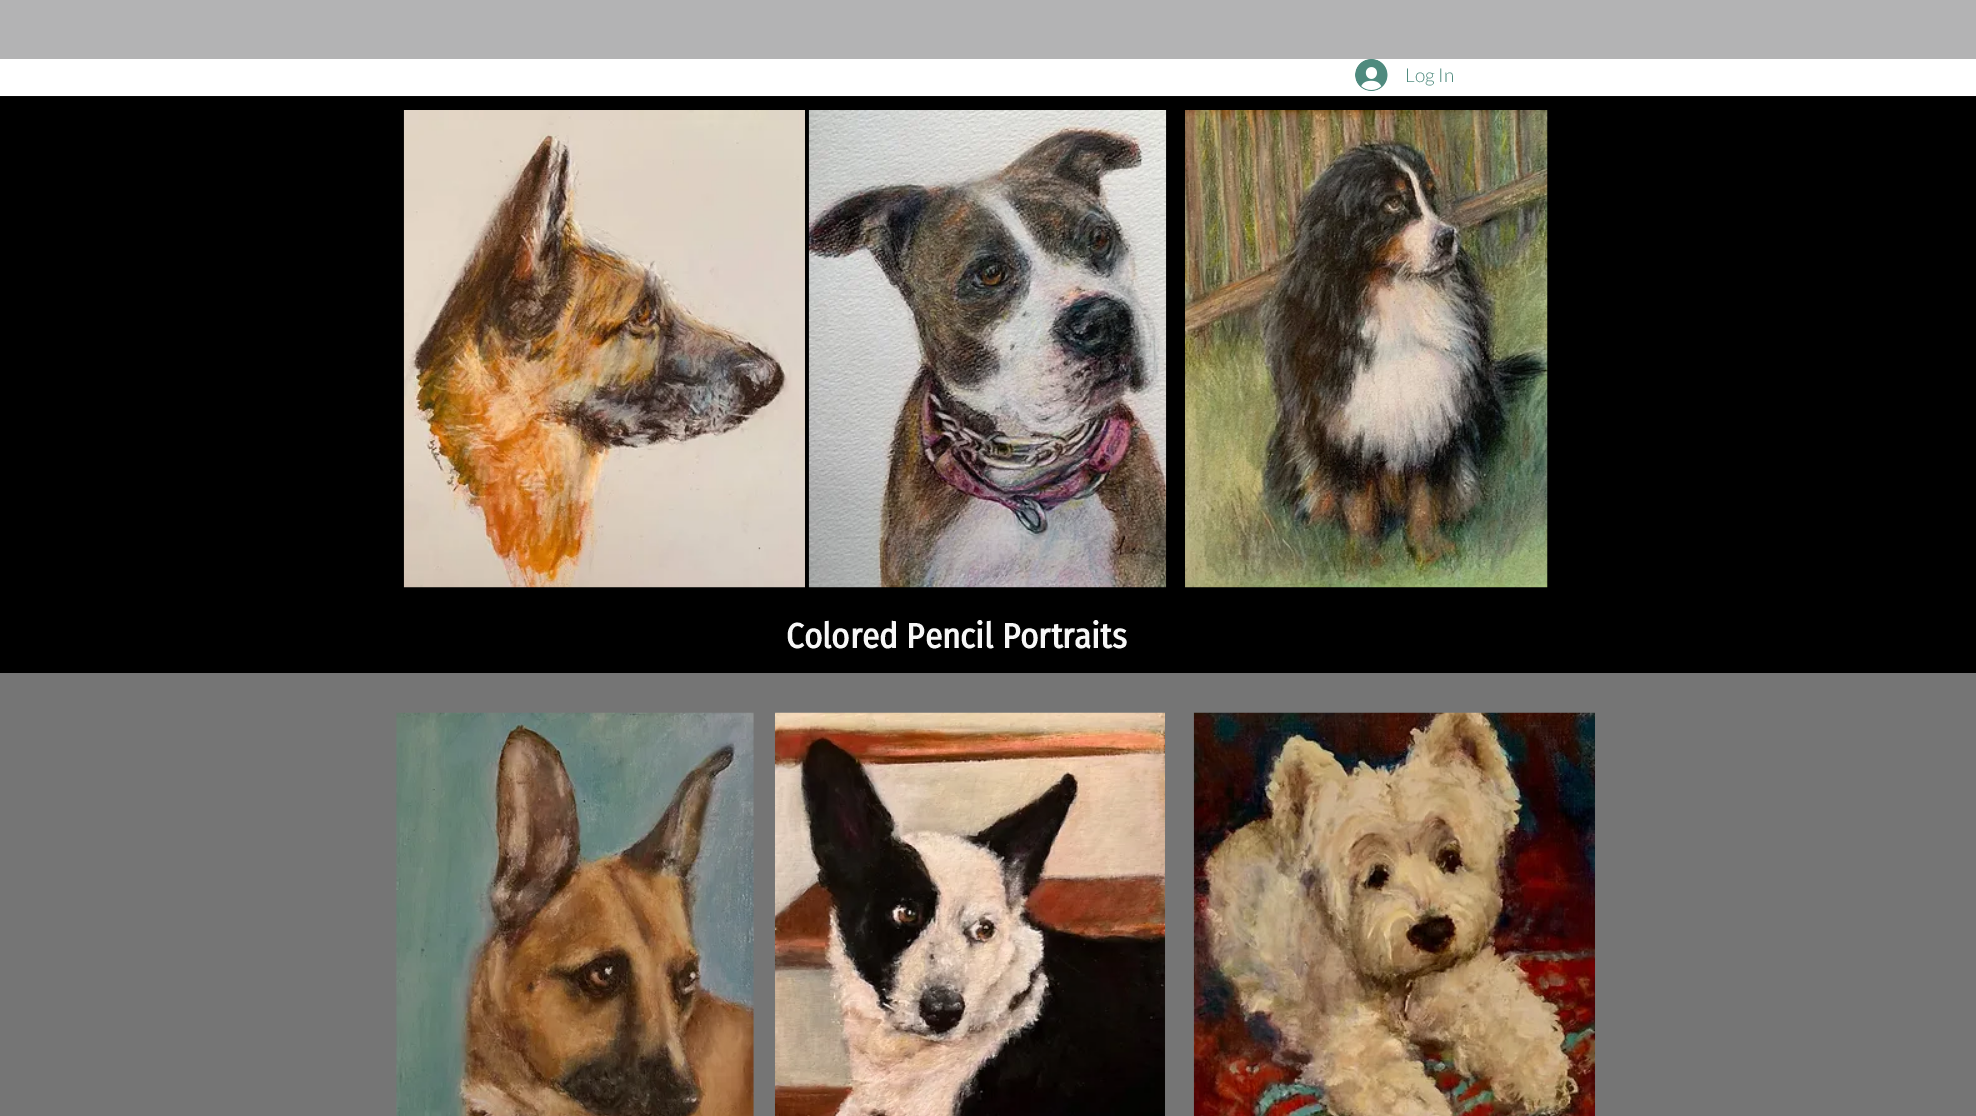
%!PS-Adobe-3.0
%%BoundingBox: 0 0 1976 1116
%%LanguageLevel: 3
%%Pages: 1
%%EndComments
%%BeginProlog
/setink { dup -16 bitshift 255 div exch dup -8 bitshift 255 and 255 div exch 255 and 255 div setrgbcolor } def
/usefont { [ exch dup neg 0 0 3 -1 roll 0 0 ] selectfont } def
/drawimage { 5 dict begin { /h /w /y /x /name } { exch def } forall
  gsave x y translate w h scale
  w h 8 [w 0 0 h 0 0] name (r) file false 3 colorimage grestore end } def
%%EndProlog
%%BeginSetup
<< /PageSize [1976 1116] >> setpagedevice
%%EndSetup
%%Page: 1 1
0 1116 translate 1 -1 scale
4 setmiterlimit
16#FFFFFF setink
0 0 1976 1116 rectfill
16#B3B3B4 setink
0 0 1976 59 rectfill
(img1.raw) 1355 59 33 32 drawimage
/Lato-Light 19 usefont
16#4F8A7E setink
1405 82 moveto (Log In) show
16#0A0A0A setink
0 96 1976 1 rectfill
16#000000 setink
0 97 1976 576 rectfill
(img2.raw) 403 110 402 478 drawimage
(img3.raw) 808 110 359 478 drawimage
(img4.raw) 1185 110 363 478 drawimage
/FiraSansCondensed-Bold 35 usefont
16#F7F7F7 setink
786 648 moveto (Colored Pencil Portraits) show
16#757575 setink
0 673 1976 443 rectfill
(img5.raw) 396 712 358 404 drawimage
(img6.raw) 775 712 390 404 drawimage
(img7.raw) 1193 712 402 404 drawimage
showpage
%%EOF
